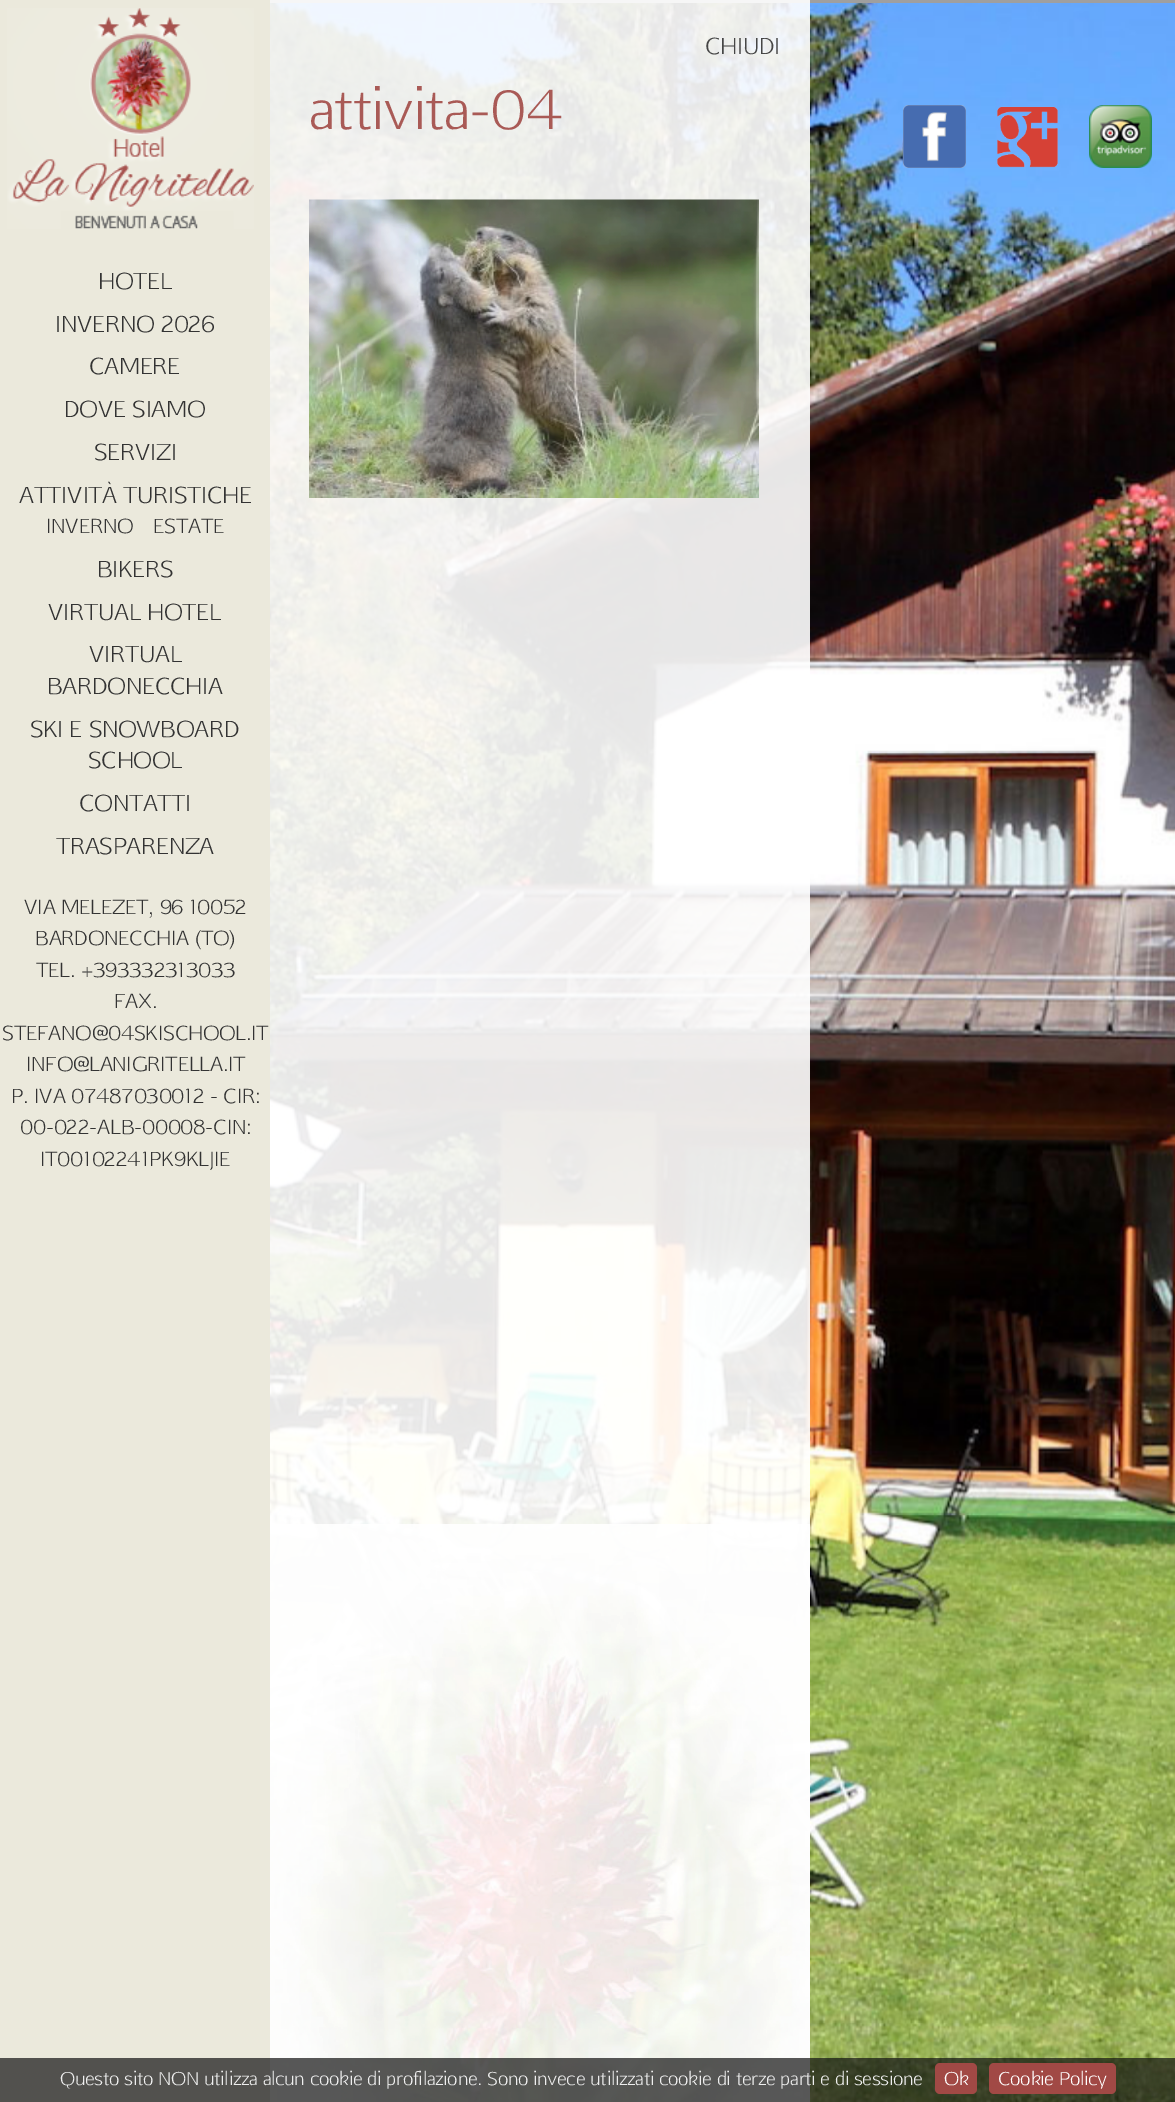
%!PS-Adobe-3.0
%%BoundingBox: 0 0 1175 2102
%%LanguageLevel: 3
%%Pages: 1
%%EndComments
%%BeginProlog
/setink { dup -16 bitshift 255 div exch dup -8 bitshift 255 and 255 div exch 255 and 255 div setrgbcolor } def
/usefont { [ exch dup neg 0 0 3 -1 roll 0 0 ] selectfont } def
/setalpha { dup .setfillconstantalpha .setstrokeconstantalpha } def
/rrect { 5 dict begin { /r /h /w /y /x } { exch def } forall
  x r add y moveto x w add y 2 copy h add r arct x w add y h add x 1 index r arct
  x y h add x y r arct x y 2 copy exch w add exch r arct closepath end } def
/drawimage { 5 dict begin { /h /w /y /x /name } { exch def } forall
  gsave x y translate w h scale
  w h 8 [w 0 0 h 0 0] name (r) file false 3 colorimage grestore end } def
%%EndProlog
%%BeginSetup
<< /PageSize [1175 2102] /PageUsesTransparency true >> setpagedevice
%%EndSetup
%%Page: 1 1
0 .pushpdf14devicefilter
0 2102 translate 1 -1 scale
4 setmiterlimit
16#FFFFFF setink
0 0 1175 2102 rectfill
16#9F9F9F setink
0 0 moveto 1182 0 lineto 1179 3 lineto 3 3 lineto closepath fill
(img1.raw) 270 3 905 2099 drawimage
0.9 setalpha
16#FFFFFF setink
270 0 540 2102 rectfill
1 setalpha
(img2.raw) 270 1524 540 578 drawimage
/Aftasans-Regular 22.5 usefont
16#464646 setink
705 54 moveto (CHIUDI) show
/Aftasans-Regular 54 usefont
16#A95A56 setink
309 129 moveto (attivita-04) show
(img3.raw) 309 199 450 299 drawimage
16#EBE9DC setink
0 0 270 2102 rectfill
(img4.raw) 7 8 247 221 drawimage
/Aftasans-Regular 22.5 usefont
16#333333 setink
[
    [(HOTEL) 98 289]
    [(INVERNO 2026) 55 332]
    [(CAMERE) 89 374]
    [(DOVE SIAMO) 64 417]
    [(SERVIZI) 94 460]
    [(ATTIVITÀ TURISTICHE) 19 503]
] { aload pop moveto show } forall
/Aftasans-Regular 19.75 usefont
46 533 moveto (INVERNO) show
153 533 moveto (ESTATE) show
/Aftasans-Regular 22.5 usefont
[
    [(BIKERS) 97 577]
    [(VIRTUAL HOTEL) 48 620]
    [(VIRTUAL) 89 662]
    [(BARDONECCHIA) 47 694]
    [(SKI E SNOWBOARD) 30 737]
    [(SCHOOL) 88 768]
    [(CONTATTI) 79 811]
    [(TRASPARENZA) 56 854]
] { aload pop moveto show } forall
/Aftasans-Regular 19.75 usefont
[
    [(VIA MELEZET, 96 10052) 24 914]
    [(BARDONECCHIA \(TO\)) 35 945]
    [(TEL. +393332313033) 36 977]
    [(FAX.) 114 1008]
    [(STEFANO@04SKISCHOOL.IT) 2 1040]
    [(INFO@LANIGRITELLA.IT) 26 1071]
    [(P. IVA 07487030012 - CIR:) 11 1103]
    [(00-022-ALB-00008-CIN:) 20 1134]
    [(IT00102241PK9KLJIE) 40 1166]
] { aload pop moveto show } forall
(img5.raw) 903 105 63 63 drawimage
(img6.raw) 997 106 61 62 drawimage
(img7.raw) 1089 105 63 63 drawimage
0.7 setalpha
16#111111 setink
0 2058 1175 44 rectfill
/Aftasans-Regular 18 usefont
1 setalpha
16#EEEEEE setink
60 2085 moveto (Questo sito NON utilizza alcun cookie di profilazione. Sono invece utilizzati cookie di terze parti e di sessione) show
16#A14945 setink
935 2063 42 31 5 rrect fill
16#FFFFFF setink
944 2085 moveto (Ok) show
16#A14945 setink
989 2063 127 31 5 rrect fill
16#FFFFFF setink
998 2085 moveto (Cookie Policy) show
.poppdf14devicefilter showpage
%%EOF
